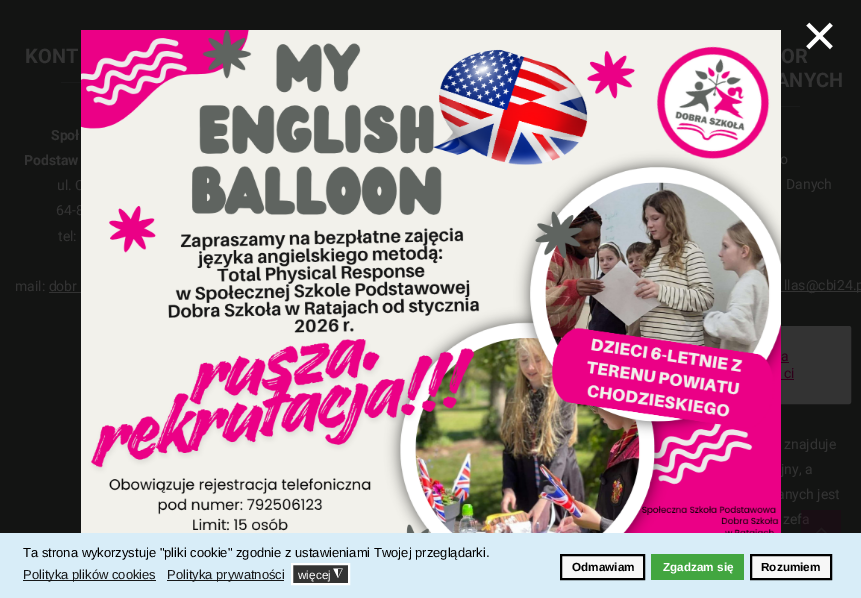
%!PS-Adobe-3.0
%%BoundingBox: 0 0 861 598
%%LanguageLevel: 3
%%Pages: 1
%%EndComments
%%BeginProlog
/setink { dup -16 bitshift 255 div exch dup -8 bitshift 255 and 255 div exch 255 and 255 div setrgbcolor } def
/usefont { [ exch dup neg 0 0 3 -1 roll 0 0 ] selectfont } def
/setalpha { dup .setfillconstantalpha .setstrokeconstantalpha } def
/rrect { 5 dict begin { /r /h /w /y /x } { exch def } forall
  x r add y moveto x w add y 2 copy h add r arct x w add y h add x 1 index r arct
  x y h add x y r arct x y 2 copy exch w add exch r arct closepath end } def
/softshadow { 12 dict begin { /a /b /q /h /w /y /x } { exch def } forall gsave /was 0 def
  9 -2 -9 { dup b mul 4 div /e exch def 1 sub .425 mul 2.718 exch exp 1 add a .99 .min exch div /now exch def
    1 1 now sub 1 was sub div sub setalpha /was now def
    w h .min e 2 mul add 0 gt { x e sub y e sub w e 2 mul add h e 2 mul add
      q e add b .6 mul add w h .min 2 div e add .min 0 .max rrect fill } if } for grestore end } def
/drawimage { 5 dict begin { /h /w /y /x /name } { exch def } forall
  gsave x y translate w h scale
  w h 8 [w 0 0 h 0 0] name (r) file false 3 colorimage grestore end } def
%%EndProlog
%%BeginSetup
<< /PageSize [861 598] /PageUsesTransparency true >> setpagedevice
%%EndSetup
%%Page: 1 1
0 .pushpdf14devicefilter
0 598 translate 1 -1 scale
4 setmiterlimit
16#131413 setink
0 0 861 598 rectfill
[
    [781 106 19 1 16#191A1A]
    [61 82 20 1 16#191A1A]
    [49 292 32 1 16#333333]
    [781 291 80 1 16#333333]
] { aload pop setink rectfill } forall
662 327 188 76 1 rrect gsave fill grestore
2 setlinewidth
stroke
16#2F001A setink
781 362 8 1 rectfill
781 379 13 1 rectfill
16#000000 setink
88 48 686 524 0 7.5 0.2 softshadow
/Roboto-Regular 14 usefont
16#333333 setink
57 190 moveto (ul. C) show
56 215 moveto (64-8) show
/Roboto-Bold 20 usefont
776 87 moveto (ANYCH) show
/Roboto-Regular 14 usefont
[
    [(o) 780 164]
    [(jny, a) 781 474]
    [(anych jest) 777 499]
] { aload pop moveto show } forall
(img1.raw) 81 30 700 503 drawimage
/LiberationSans-Regular 60 usefont
16#FFFFFF setink
802 56 moveto (×) show
/Roboto-Bold 20 usefont
16#333333 setink
25 63 moveto (KONT) show
/Roboto-Bold 14 usefont
51 140 moveto (Społ) show
24 165 moveto (Podstaw) show
/Roboto-Regular 14 usefont
58 241 moveto (tel:) show
15 291 moveto (mail: dobr) show
/Roboto-Bold 20 usefont
781 63 moveto (OR) show
/Roboto-Regular 14 usefont
786 189 moveto (Danych) show
784 290 moveto (llas@cbi24.p) show
16#2F001A setink
781 361 moveto (a) show
784 378 moveto (ci) show
16#333333 setink
784 449 moveto (znajduje) show
783 524 moveto (zefa) show
0.3 setalpha
16#260015 setink
801 510 40 23 rectfill
1 setalpha
(img2.raw) 816 527 11 6 drawimage
16#D8EDF8 setink
0 533 861 65 rectfill
/LiberationSans-Regular 13 usefont
16#000000 setink
23 557 moveto (Ta strona wykorzystuje "pliki cookie" zgodnie z ustawieniami Twojej przeglądarki.) show
16#161819 setink
23 580 133 1 rectfill
23 579 moveto (Polityka plików cookies) show
167 580 117 1 rectfill
167 579 moveto (Polityka prywatności) show
16#333333 setink
292 564 moveto 349 564 lineto 349 584 lineto 292 584 lineto closepath gsave fill grestore
16#FFFFFF setink
stroke
/LiberationSans-Regular 11.75 usefont
298 579 moveto (więcej) show
/DejaVuSans-Regular 13 usefont
gsave 343 570 translate 180 rotate 0 0 moveto (◮) show grestore
16#F7F7F7 setink
561 555 moveto 644 555 lineto 644 579 lineto 561 579 lineto closepath gsave fill grestore
16#000000 setink
stroke
/LiberationSans-Bold 11.75 usefont
572 571 moveto (Odmawiam) show
16#42A640 setink
651 554 93 26 rectfill
16#FFFFFF setink
663 571 moveto (Zgadzam się) show
16#F7F7F7 setink
751 555 moveto 831 555 lineto 831 579 lineto 751 579 lineto closepath gsave fill grestore
16#000000 setink
stroke
761 571 moveto (Rozumiem) show
.poppdf14devicefilter showpage
%%EOF
